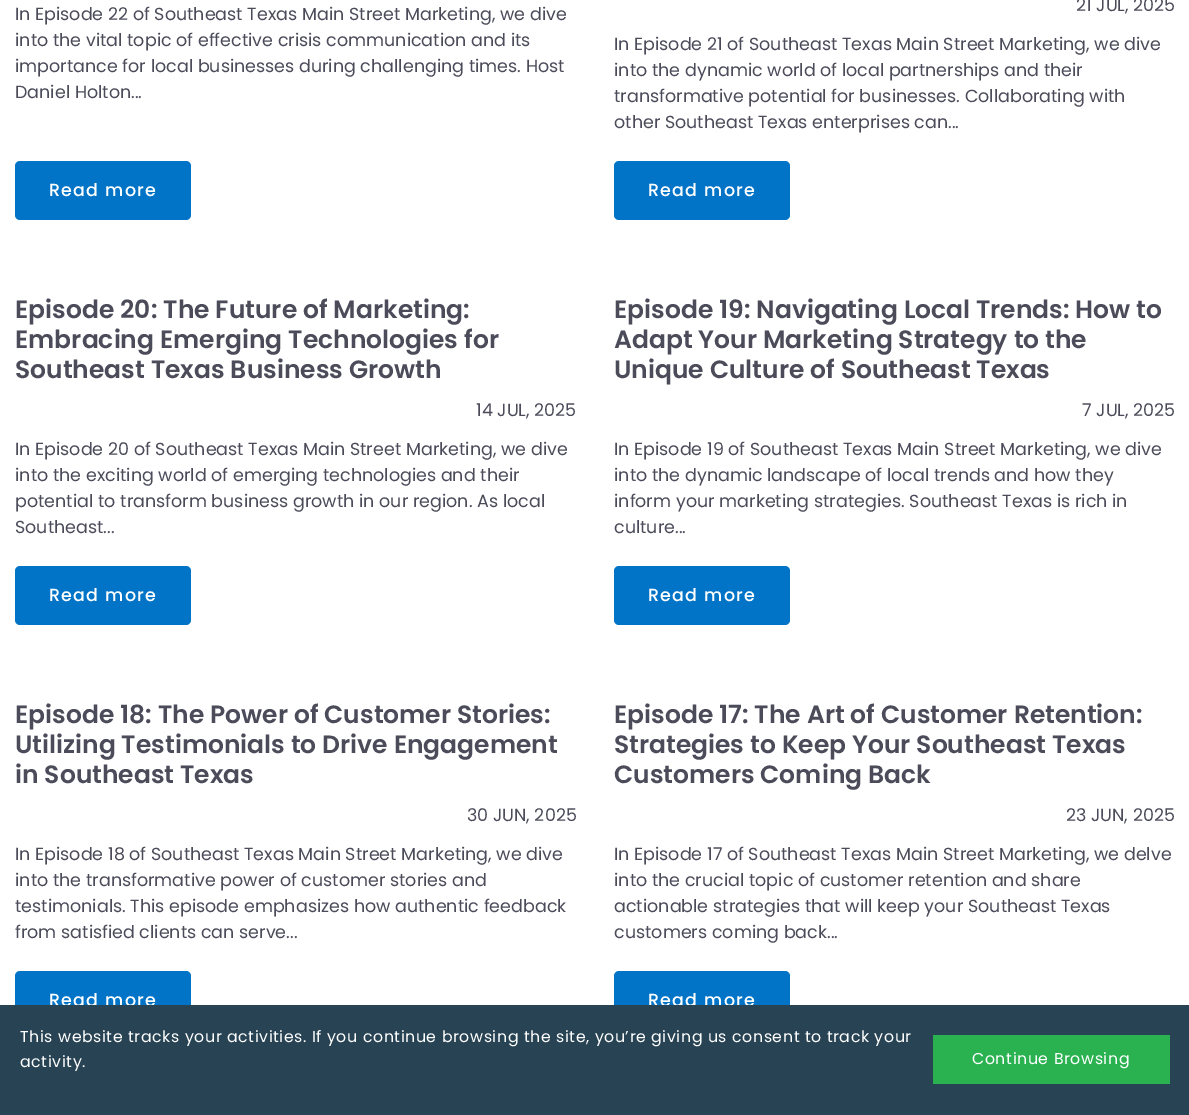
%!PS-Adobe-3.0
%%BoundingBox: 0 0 1189 1115
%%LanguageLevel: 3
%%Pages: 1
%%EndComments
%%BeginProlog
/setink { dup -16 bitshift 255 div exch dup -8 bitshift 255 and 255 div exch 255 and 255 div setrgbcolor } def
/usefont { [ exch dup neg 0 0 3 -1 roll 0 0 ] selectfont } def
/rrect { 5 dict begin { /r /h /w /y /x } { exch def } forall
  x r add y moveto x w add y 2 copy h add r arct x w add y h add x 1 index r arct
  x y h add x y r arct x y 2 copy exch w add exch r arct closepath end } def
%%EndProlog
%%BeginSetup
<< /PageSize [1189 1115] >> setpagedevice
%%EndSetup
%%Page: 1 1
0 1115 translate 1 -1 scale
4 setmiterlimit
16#FFFFFF setink
0 0 1189 1115 rectfill
/Poppins-Regular 17.5 usefont
16#4B4B5A setink
[
    [(In Episode 22 of Southeast Texas Main Street Marketing, we dive) 15 20]
    [(into the vital topic of effective crisis communication and its) 15 46]
    [(importance for local businesses during challenging times. Host) 15 72]
    [(Daniel Holton...) 15 98]
] { aload pop moveto show } forall
16#0174C7 setink
15 161 176 59 5 rrect fill
/Poppins-Medium 17.5 usefont
16#FFFFFF setink
49 196 moveto 1.25 0 (Read more) ashow
/Poppins-Regular 17.5 usefont
16#4B4B5A setink
[
    [(21 JUL, 2025) 1076 11]
    [(In Episode 21 of Southeast Texas Main Street Marketing, we dive) 614 50]
    [(into the dynamic world of local partnerships and their) 614 76]
    [(transformative potential for businesses. Collaborating with) 614 102]
    [(other Southeast Texas enterprises can...) 614 128]
] { aload pop moveto show } forall
16#0174C7 setink
614 161 176 59 5 rrect fill
/Poppins-Medium 17.5 usefont
16#FFFFFF setink
648 196 moveto 1.25 0 (Read more) ashow
/Poppins-SemiBold 25 usefont
16#4B4B5A setink
[
    [(Episode 20: The Future of Marketing:) 15 318]
    [(Embracing Emerging Technologies for) 15 348]
    [(Southeast Texas Business Growth) 15 378]
] { aload pop moveto show } forall
/Poppins-Regular 17.5 usefont
[
    [(14 JUL, 2025) 476 416]
    [(In Episode 20 of Southeast Texas Main Street Marketing, we dive) 15 455]
    [(into the exciting world of emerging technologies and their) 15 481]
    [(potential to transform business growth in our region. As local) 15 507]
    [(Southeast...) 15 533]
] { aload pop moveto show } forall
16#0174C7 setink
15 566 176 59 5 rrect fill
/Poppins-Medium 17.5 usefont
16#FFFFFF setink
49 601 moveto 1.25 0 (Read more) ashow
/Poppins-SemiBold 25 usefont
16#4B4B5A setink
[
    [(Episode 19: Navigating Local Trends: How to) 614 318]
    [(Adapt Your Marketing Strategy to the) 614 348]
    [(Unique Culture of Southeast Texas) 614 378]
] { aload pop moveto show } forall
/Poppins-Regular 17.5 usefont
[
    [(7 JUL, 2025) 1082 416]
    [(In Episode 19 of Southeast Texas Main Street Marketing, we dive) 614 455]
    [(into the dynamic landscape of local trends and how they) 614 481]
    [(inform your marketing strategies. Southeast Texas is rich in) 614 507]
    [(culture...) 614 533]
] { aload pop moveto show } forall
16#0174C7 setink
614 566 176 59 5 rrect fill
/Poppins-Medium 17.5 usefont
16#FFFFFF setink
648 601 moveto 1.25 0 (Read more) ashow
/Poppins-SemiBold 25 usefont
16#4B4B5A setink
[
    [(Episode 18: The Power of Customer Stories:) 15 723]
    [(Utilizing Testimonials to Drive Engagement) 15 753]
    [(in Southeast Texas) 15 783]
] { aload pop moveto show } forall
/Poppins-Regular 17.5 usefont
[
    [(30 JUN, 2025) 467 821]
    [(In Episode 18 of Southeast Texas Main Street Marketing, we dive) 15 860]
    [(into the transformative power of customer stories and) 15 886]
    [(testimonials. This episode emphasizes how authentic feedback) 15 912]
    [(from satisfied clients can serve...) 15 938]
] { aload pop moveto show } forall
16#0174C7 setink
15 971 176 59 5 rrect fill
/Poppins-Medium 17.5 usefont
16#FFFFFF setink
49 1006 moveto 1.25 0 (Read more) ashow
/Poppins-SemiBold 25 usefont
16#4B4B5A setink
[
    [(Episode 17: The Art of Customer Retention:) 614 723]
    [(Strategies to Keep Your Southeast Texas) 614 753]
    [(Customers Coming Back) 614 783]
] { aload pop moveto show } forall
/Poppins-Regular 17.5 usefont
[
    [(23 JUN, 2025) 1066 821]
    [(In Episode 17 of Southeast Texas Main Street Marketing, we delve) 614 860]
    [(into the crucial topic of customer retention and share) 614 886]
    [(actionable strategies that will keep your Southeast Texas) 614 912]
    [(customers coming back...) 614 938]
] { aload pop moveto show } forall
16#0174C7 setink
614 971 176 59 5 rrect fill
/Poppins-Medium 17.5 usefont
16#FFFFFF setink
648 1006 moveto 1.25 0 (Read more) ashow
16#284354 setink
0 1005 1189 110 rectfill
/Poppins-Regular 15.75 usefont
16#FFFFFF setink
20 1042 moveto 0.62 0 (This website tracks your activities. If you continue browsing the site, you’re giving us consent to track your) ashow
20 1067 moveto 0.62 0 (activity.) ashow
16#2AB150 setink
933 1035 237 49 rectfill
16#FFFFFF setink
972 1064 moveto 0.62 0 (Continue Browsing) ashow
showpage
%%EOF
